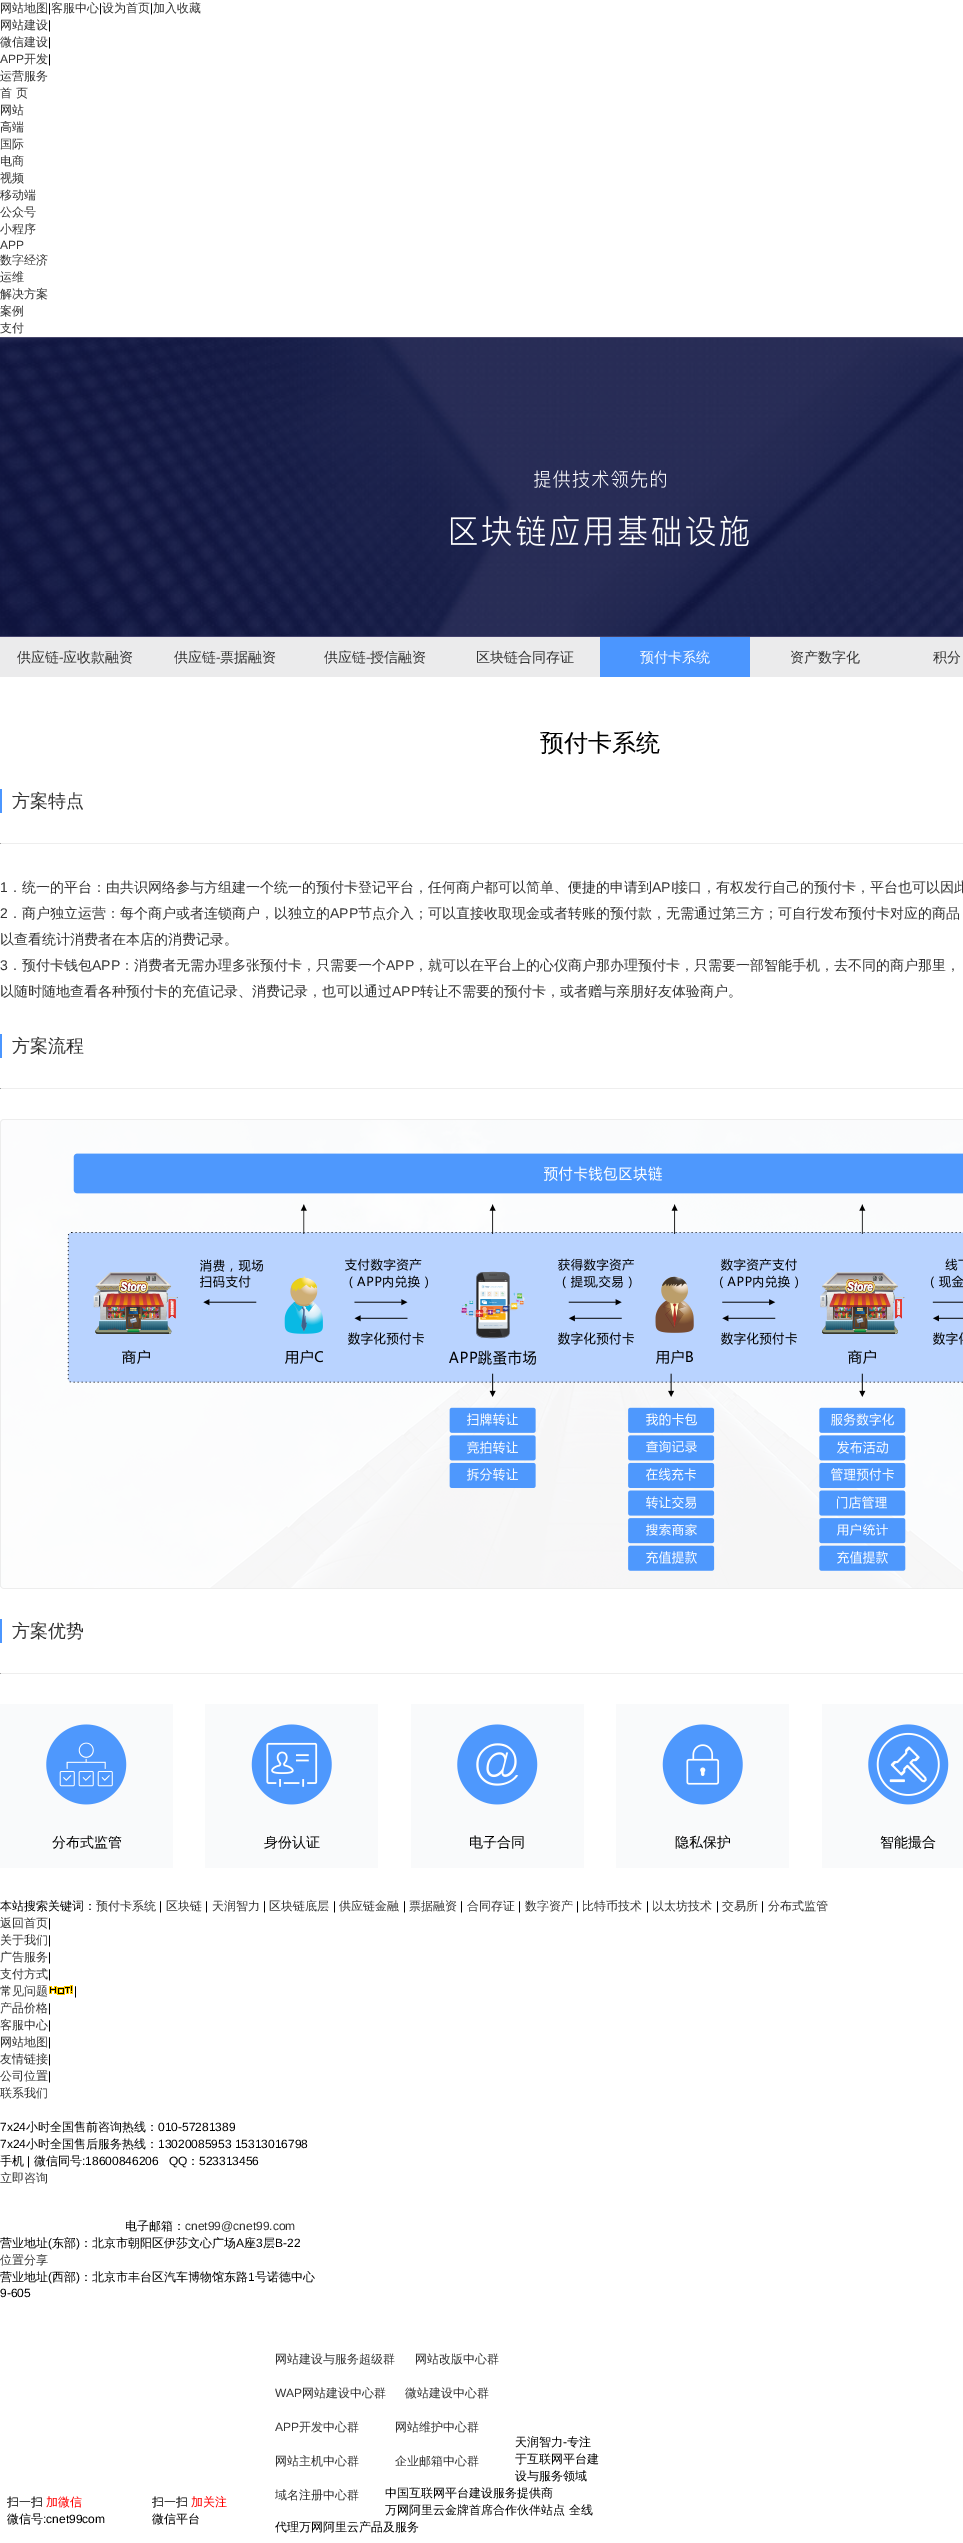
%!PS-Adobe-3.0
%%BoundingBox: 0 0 963 2543
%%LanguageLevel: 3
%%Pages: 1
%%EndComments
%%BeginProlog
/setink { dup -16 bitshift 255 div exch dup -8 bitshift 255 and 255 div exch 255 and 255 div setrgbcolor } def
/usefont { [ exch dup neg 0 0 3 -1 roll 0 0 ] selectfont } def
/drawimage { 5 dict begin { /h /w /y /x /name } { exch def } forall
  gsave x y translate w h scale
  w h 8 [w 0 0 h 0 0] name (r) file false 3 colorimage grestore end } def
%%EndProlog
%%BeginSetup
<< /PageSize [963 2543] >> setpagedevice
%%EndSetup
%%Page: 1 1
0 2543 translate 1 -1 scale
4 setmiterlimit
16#FFFFFF setink
0 0 963 2543 rectfill
/WenQuanYiZenHei-Medium 12 usefont
16#333333 setink
0 12 moveto (网站地图) show
/LiberationSans-Regular 12 usefont
16#000000 setink
48 12 moveto (|) show
/WenQuanYiZenHei-Medium 12 usefont
16#333333 setink
51 12 moveto (客服中心) show
/LiberationSans-Regular 12 usefont
16#000000 setink
99 12 moveto (|) show
/WenQuanYiZenHei-Medium 12 usefont
16#333333 setink
102 12 moveto (设为首页) show
/LiberationSans-Regular 12 usefont
16#000000 setink
150 12 moveto (|) show
/WenQuanYiZenHei-Medium 12 usefont
16#333333 setink
153 12 moveto (加入收藏) show
0 29 moveto (网站建设) show
/LiberationSans-Regular 12 usefont
16#000000 setink
48 29 moveto (|) show
/WenQuanYiZenHei-Medium 12 usefont
16#333333 setink
0 46 moveto (微信建设) show
/LiberationSans-Regular 12 usefont
16#000000 setink
48 46 moveto (|) show
16#333333 setink
0 63 moveto (APP) show
/WenQuanYiZenHei-Medium 12 usefont
24 63 moveto (开发) show
/LiberationSans-Regular 12 usefont
16#000000 setink
48 63 moveto (|) show
/WenQuanYiZenHei-Medium 12 usefont
16#333333 setink
[
    [(运营服务) 0 80]
    [(首 页) 0 97]
    [(网站) 0 114]
    [(高端) 0 131]
    [(国际) 0 148]
    [(电商) 0 165]
    [(视频) 0 182]
    [(移动端) 0 199]
    [(公众号) 0 216]
    [(小程序) 0 233]
] { aload pop moveto show } forall
/LiberationSans-Regular 12 usefont
0 249 moveto (APP) show
/WenQuanYiZenHei-Medium 12 usefont
[
    [(数字经济) 0 264]
    [(运维) 0 281]
    [(解决方案) 0 298]
    [(案例) 0 315]
    [(支付) 0 332]
] { aload pop moveto show } forall
(img1.raw) 0 337 963 300 drawimage
16#EBEBEC setink
0 637 963 40 rectfill
/WenQuanYiZenHei-Medium 14 usefont
16#333333 setink
17 662 moveto (供应链) show
/LiberationSans-Regular 14 usefont
59 662 moveto (-) show
/WenQuanYiZenHei-Medium 14 usefont
63 662 moveto (应收款融资) show
174 662 moveto (供应链) show
/LiberationSans-Regular 14 usefont
216 662 moveto (-) show
/WenQuanYiZenHei-Medium 14 usefont
220 662 moveto (票据融资) show
324 662 moveto (供应链) show
/LiberationSans-Regular 14 usefont
366 662 moveto (-) show
/WenQuanYiZenHei-Medium 14 usefont
370 662 moveto (授信融资) show
476 662 moveto (区块链合同存证) show
16#4B96FF setink
600 637 150 40 rectfill
16#FFFFFF setink
640 662 moveto (预付卡系统) show
16#333333 setink
790 662 moveto (资产数字化) show
933 662 moveto (积分) show
/WenQuanYiZenHei-Medium 24 usefont
16#000000 setink
540 751 moveto (预付卡系统) show
16#4B96FF setink
0 789 2 24 rectfill
/WenQuanYiZenHei-Medium 18 usefont
16#333333 setink
12 807 moveto (方案特点) show
16#EEEEEE setink
0 843 963 1 rectfill
16#9F9F9F setink
0 843 1 1 rectfill
/LiberationSans-Regular 14 usefont
16#333333 setink
0 892 moveto (1) show
/WenQuanYiZenHei-Medium 14 usefont
8 892 moveto (．统一的平台：由共识网络参与方组建一个统一的预付卡登记平台，任何商户都可以简单、便捷的申请到) show
/LiberationSans-Regular 14 usefont
652 892 moveto (API) show
/WenQuanYiZenHei-Medium 14 usefont
674 892 moveto (接口，有权发行自己的预付卡，平台也可以因此) show
/LiberationSans-Regular 14 usefont
0 918 moveto (2) show
/WenQuanYiZenHei-Medium 14 usefont
8 918 moveto (．商户独立运营：每个商户或者连锁商户，以独立的) show
/LiberationSans-Regular 14 usefont
330 918 moveto (APP) show
/WenQuanYiZenHei-Medium 14 usefont
358 918 moveto (节点介入；可以直接收取现金或者转账的预付款，无需通过第三方；可自行发布预付卡对应的商品) show
0 944 moveto (以查看统计消费者在本店的消费记录。) show
/LiberationSans-Regular 14 usefont
0 970 moveto (3) show
/WenQuanYiZenHei-Medium 14 usefont
8 970 moveto (．预付卡钱包) show
/LiberationSans-Regular 14 usefont
92 970 moveto (APP) show
/WenQuanYiZenHei-Medium 14 usefont
120 970 moveto (：消费者无需办理多张预付卡，只需要一个) show
/LiberationSans-Regular 14 usefont
386 970 moveto (APP) show
/WenQuanYiZenHei-Medium 14 usefont
414 970 moveto (，就可以在平台上的心仪商户那办理预付卡，只需要一部智能手机，去不同的商户那里，) show
0 996 moveto (以随时随地查看各种预付卡的充值记录、消费记录，也可以通过) show
/LiberationSans-Regular 14 usefont
392 996 moveto (APP) show
/WenQuanYiZenHei-Medium 14 usefont
420 996 moveto (转让不需要的预付卡，或者赠与亲朋好友体验商户。) show
16#4B96FF setink
0 1034 2 24 rectfill
/WenQuanYiZenHei-Medium 18 usefont
16#333333 setink
12 1052 moveto (方案流程) show
16#EEEEEE setink
0 1088 963 1 rectfill
16#9F9F9F setink
0 1088 1 1 rectfill
(img2.raw) 0 1119 963 470 drawimage
(img3.raw) 0 1119 963 468 drawimage
16#4B96FF setink
0 1619 2 24 rectfill
16#333333 setink
12 1637 moveto (方案优势) show
[
    [0 1673 963 1 16#EEEEEE]
    [0 1673 1 1 16#9F9F9F]
    [0 1704 173 164 16#F9FAFB]
] { aload pop setink rectfill } forall
(img4.raw) 46 1724 81 81 drawimage
/WenQuanYiZenHei-Medium 14 usefont
16#000000 setink
52 1847 moveto (分布式监管) show
16#F9FAFB setink
205 1704 173 164 rectfill
(img5.raw) 251 1724 81 81 drawimage
16#000000 setink
264 1847 moveto (身份认证) show
16#F9FAFB setink
411 1704 173 164 rectfill
(img6.raw) 457 1724 81 81 drawimage
16#000000 setink
469 1847 moveto (电子合同) show
16#F9FAFB setink
616 1704 173 164 rectfill
(img7.raw) 662 1724 81 81 drawimage
16#000000 setink
675 1847 moveto (隐私保护) show
16#F9FAFB setink
822 1704 141 164 rectfill
(img8.raw) 868 1724 81 81 drawimage
16#000000 setink
880 1847 moveto (智能撮合) show
/WenQuanYiZenHei-Medium 12 usefont
0 1910 moveto (本站搜索关键词：) show
16#333333 setink
96 1910 moveto (预付卡系统) show
/LiberationSans-Regular 12 usefont
16#000000 setink
159 1910 moveto (|) show
/WenQuanYiZenHei-Medium 12 usefont
16#333333 setink
166 1910 moveto (区块链) show
/LiberationSans-Regular 12 usefont
16#000000 setink
205 1910 moveto (|) show
/WenQuanYiZenHei-Medium 12 usefont
16#333333 setink
212 1910 moveto (天润智力) show
/LiberationSans-Regular 12 usefont
16#000000 setink
263 1910 moveto (|) show
/WenQuanYiZenHei-Medium 12 usefont
16#333333 setink
269 1910 moveto (区块链底层) show
/LiberationSans-Regular 12 usefont
16#000000 setink
333 1910 moveto (|) show
/WenQuanYiZenHei-Medium 12 usefont
16#333333 setink
339 1910 moveto (供应链金融) show
/LiberationSans-Regular 12 usefont
16#000000 setink
403 1910 moveto (|) show
/WenQuanYiZenHei-Medium 12 usefont
16#333333 setink
409 1910 moveto (票据融资) show
/LiberationSans-Regular 12 usefont
16#000000 setink
460 1910 moveto (|) show
/WenQuanYiZenHei-Medium 12 usefont
16#333333 setink
467 1910 moveto (合同存证) show
/LiberationSans-Regular 12 usefont
16#000000 setink
518 1910 moveto (|) show
/WenQuanYiZenHei-Medium 12 usefont
16#333333 setink
525 1910 moveto (数字资产) show
/LiberationSans-Regular 12 usefont
16#000000 setink
576 1910 moveto (|) show
/WenQuanYiZenHei-Medium 12 usefont
16#333333 setink
582 1910 moveto (比特币技术) show
/LiberationSans-Regular 12 usefont
16#000000 setink
646 1910 moveto (|) show
/WenQuanYiZenHei-Medium 12 usefont
16#333333 setink
652 1910 moveto (以太坊技术) show
/LiberationSans-Regular 12 usefont
16#000000 setink
716 1910 moveto (|) show
/WenQuanYiZenHei-Medium 12 usefont
16#333333 setink
722 1910 moveto (交易所) show
/LiberationSans-Regular 12 usefont
16#000000 setink
761 1910 moveto (|) show
/WenQuanYiZenHei-Medium 12 usefont
16#333333 setink
768 1910 moveto (分布式监管) show
0 1927 moveto (返回首页) show
/LiberationSans-Regular 12 usefont
16#000000 setink
48 1927 moveto (|) show
/WenQuanYiZenHei-Medium 12 usefont
16#333333 setink
0 1944 moveto (关于我们) show
/LiberationSans-Regular 12 usefont
16#000000 setink
48 1944 moveto (|) show
/WenQuanYiZenHei-Medium 12 usefont
16#333333 setink
0 1961 moveto (广告服务) show
/LiberationSans-Regular 12 usefont
16#000000 setink
48 1961 moveto (|) show
/WenQuanYiZenHei-Medium 12 usefont
16#333333 setink
0 1978 moveto (支付方式) show
/LiberationSans-Regular 12 usefont
16#000000 setink
48 1978 moveto (|) show
/WenQuanYiZenHei-Medium 12 usefont
16#333333 setink
0 1995 moveto (常见问题) show
(img9.raw) 49 1985 24 10 drawimage
/LiberationSans-Regular 12 usefont
16#000000 setink
74 1995 moveto (|) show
/WenQuanYiZenHei-Medium 12 usefont
16#333333 setink
0 2012 moveto (产品价格) show
/LiberationSans-Regular 12 usefont
16#000000 setink
48 2012 moveto (|) show
/WenQuanYiZenHei-Medium 12 usefont
16#333333 setink
0 2029 moveto (客服中心) show
/LiberationSans-Regular 12 usefont
16#000000 setink
48 2029 moveto (|) show
/WenQuanYiZenHei-Medium 12 usefont
16#333333 setink
0 2046 moveto (网站地图) show
/LiberationSans-Regular 12 usefont
16#000000 setink
48 2046 moveto (|) show
/WenQuanYiZenHei-Medium 12 usefont
16#333333 setink
0 2063 moveto (友情链接) show
/LiberationSans-Regular 12 usefont
16#000000 setink
48 2063 moveto (|) show
/WenQuanYiZenHei-Medium 12 usefont
16#333333 setink
0 2080 moveto (公司位置) show
/LiberationSans-Regular 12 usefont
16#000000 setink
48 2080 moveto (|) show
/WenQuanYiZenHei-Medium 12 usefont
16#333333 setink
0 2097 moveto (联系我们) show
/LiberationSans-Regular 12 usefont
16#000000 setink
0 2131 moveto (7x24) show
/WenQuanYiZenHei-Medium 12 usefont
26 2131 moveto (小时全国售前咨询热线：) show
/LiberationSans-Regular 12 usefont
158 2131 moveto (010-57281389) show
0 2148 moveto (7x24) show
/WenQuanYiZenHei-Medium 12 usefont
26 2148 moveto (小时全国售后服务热线：) show
/LiberationSans-Regular 12 usefont
158 2148 moveto (13020085953 15313016798) show
/WenQuanYiZenHei-Medium 12 usefont
0 2165 moveto (手机) show
/LiberationSans-Regular 12 usefont
27 2165 moveto (|) show
/WenQuanYiZenHei-Medium 12 usefont
34 2165 moveto (微信同号) show
/LiberationSans-Regular 12 usefont
82 2165 moveto (:18600846206   QQ) show
/WenQuanYiZenHei-Medium 12 usefont
187 2165 moveto (：) show
/LiberationSans-Regular 12 usefont
199 2165 moveto (523313456) show
/WenQuanYiZenHei-Medium 12 usefont
16#333333 setink
0 2182 moveto (立即咨询) show
16#000000 setink
125 2230 moveto (电子邮箱：) show
/LiberationSans-Regular 12 usefont
16#333333 setink
185 2230 moveto (cnet99@cnet99.com) show
/WenQuanYiZenHei-Medium 12 usefont
16#000000 setink
0 2247 moveto (营业地址) show
/LiberationSans-Regular 12 usefont
48 2247 moveto (\() show
/WenQuanYiZenHei-Medium 12 usefont
52 2247 moveto (东部) show
/LiberationSans-Regular 12 usefont
76 2247 moveto (\)) show
/WenQuanYiZenHei-Medium 12 usefont
80 2247 moveto (：北京市朝阳区伊莎文心广场) show
/LiberationSans-Regular 12 usefont
236 2247 moveto (A) show
/WenQuanYiZenHei-Medium 12 usefont
244 2247 moveto (座) show
/LiberationSans-Regular 12 usefont
256 2247 moveto (3) show
/WenQuanYiZenHei-Medium 12 usefont
263 2247 moveto (层) show
/LiberationSans-Regular 12 usefont
275 2247 moveto (B-22) show
/WenQuanYiZenHei-Medium 12 usefont
16#333333 setink
0 2264 moveto (位置分享) show
16#000000 setink
0 2281 moveto (营业地址) show
/LiberationSans-Regular 12 usefont
48 2281 moveto (\() show
/WenQuanYiZenHei-Medium 12 usefont
52 2281 moveto (西部) show
/LiberationSans-Regular 12 usefont
76 2281 moveto (\)) show
/WenQuanYiZenHei-Medium 12 usefont
80 2281 moveto (：北京市丰台区汽车博物馆东路) show
/LiberationSans-Regular 12 usefont
248 2281 moveto (1) show
/WenQuanYiZenHei-Medium 12 usefont
255 2281 moveto (号诺德中心) show
/LiberationSans-Regular 12 usefont
0 2297 moveto (9-605) show
/WenQuanYiZenHei-Medium 12 usefont
7 2506 moveto (扫一扫) show
16#FF0000 setink
46 2506 moveto (加微信) show
16#000000 setink
7 2523 moveto (微信号) show
/LiberationSans-Regular 12 usefont
43 2523 moveto (:cnet99com) show
/WenQuanYiZenHei-Medium 12 usefont
152 2506 moveto (扫一扫) show
16#FF0000 setink
191 2506 moveto (加关注) show
16#000000 setink
152 2523 moveto (微信平台) show
16#333333 setink
275 2363 moveto (网站建设与服务超级群) show
415 2363 moveto (网站改版中心群) show
/LiberationSans-Regular 12 usefont
275 2397 moveto (WAP) show
/WenQuanYiZenHei-Medium 12 usefont
302 2397 moveto (网站建设中心群) show
405 2397 moveto (微站建设中心群) show
/LiberationSans-Regular 12 usefont
275 2431 moveto (APP) show
/WenQuanYiZenHei-Medium 12 usefont
[
    [(开发中心群) 299 2431]
    [(网站维护中心群) 395 2431]
    [(网站主机中心群) 275 2465]
    [(企业邮箱中心群) 395 2465]
    [(域名注册中心群) 275 2499]
] { aload pop moveto show } forall
16#000000 setink
515 2446 moveto (天润智力) show
/LiberationSans-Regular 12 usefont
563 2446 moveto (-) show
/WenQuanYiZenHei-Medium 12 usefont
[
    [(专注) 567 2446]
    [(于互联网平台建) 515 2463]
    [(设与服务领域) 515 2480]
    [(中国互联网平台建设服务提供商) 385 2497]
    [(万网阿里云金牌首席合作伙伴站点 全线) 385 2514]
    [(代理万网阿里云产品及服务) 275 2531]
] { aload pop moveto show } forall
showpage
%%EOF
